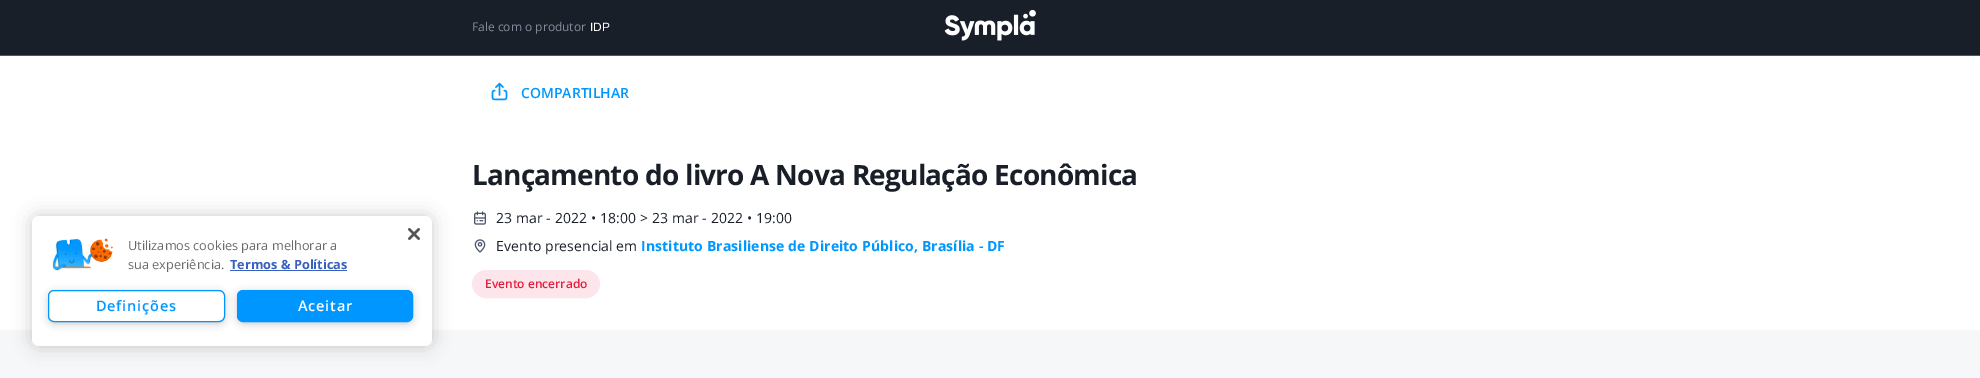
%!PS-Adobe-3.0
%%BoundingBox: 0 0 1980 378
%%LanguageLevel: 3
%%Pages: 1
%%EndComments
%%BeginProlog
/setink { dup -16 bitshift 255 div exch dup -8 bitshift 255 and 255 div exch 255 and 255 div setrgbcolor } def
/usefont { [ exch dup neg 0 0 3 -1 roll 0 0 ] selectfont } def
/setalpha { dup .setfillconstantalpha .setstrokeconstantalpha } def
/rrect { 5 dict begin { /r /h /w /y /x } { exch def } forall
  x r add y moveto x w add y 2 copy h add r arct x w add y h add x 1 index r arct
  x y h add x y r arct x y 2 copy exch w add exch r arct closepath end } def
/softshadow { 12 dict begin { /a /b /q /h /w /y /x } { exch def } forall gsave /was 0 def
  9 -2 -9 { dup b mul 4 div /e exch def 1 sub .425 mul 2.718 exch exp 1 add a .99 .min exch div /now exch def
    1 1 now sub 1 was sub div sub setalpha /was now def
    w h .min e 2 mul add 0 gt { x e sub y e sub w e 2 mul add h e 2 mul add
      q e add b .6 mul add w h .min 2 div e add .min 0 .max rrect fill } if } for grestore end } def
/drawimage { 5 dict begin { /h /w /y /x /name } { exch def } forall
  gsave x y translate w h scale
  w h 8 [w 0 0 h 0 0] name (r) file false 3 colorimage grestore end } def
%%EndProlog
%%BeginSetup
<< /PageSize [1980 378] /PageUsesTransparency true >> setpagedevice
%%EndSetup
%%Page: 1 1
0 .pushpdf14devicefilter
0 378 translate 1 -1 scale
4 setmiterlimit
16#FFFFFF setink
0 0 1980 378 rectfill
16#F5F7F8 setink
0 330 1980 48 rectfill
16#000000 setink
32 216 400 130 7 9 0.2 softshadow
16#FFFFFF setink
32 216 400 130 7 rrect fill
(img1.raw) 52 238 61 33 drawimage
(img2.raw) 408 228 12 12 drawimage
/OpenSans-Regular 12.75 usefont
16#696969 setink
128 250 moveto (Utilizamos cookies para melhorar a) show
128 269 moveto (sua experiência.) show
/OpenSans-Bold 12.75 usefont
16#3860BE setink
230 269 moveto (Termos & Políticas) show
230 270 117 1 rectfill
16#999999 setink
240 295 170 26 3 5 1 softshadow
16#0096FF setink
237.5 290.5 175 31 5.5 rrect gsave fill grestore
stroke
16#999999 setink
51 295 171 26 3 5 1 softshadow
16#FFFFFF setink
48.5 290.5 176 31 5.5 rrect gsave fill grestore
16#0096FF setink
stroke
/OpenSans-SemiBold 14.5 usefont
16#0097FF setink
96 311 moveto 0.75 0 (Definições) ashow
16#FFFFFF setink
298 311 moveto 0.75 0 (Aceitar) ashow
16#191F28 setink
0 0 1980 55 rectfill
16#4C576C setink
0 55 1980 1 rectfill
/OpenSans-Regular 12 usefont
16#848C9B setink
472 31 moveto (Fale com o produtor) show
/LiberationSans-Regular 12 usefont
16#FFFFFF setink
590 31 moveto (IDP) show
(img3.raw) 944 9 92 32 drawimage
(img4.raw) 491 82 17 19 drawimage
/OpenSans-SemiBold 14 usefont
16#0097FF setink
521 98 moveto (COMPARTILHAR) show
/OpenSans-Bold 28 usefont
16#191F28 setink
472 185 moveto -0.8 0 (Lançamento do livro A Nova Regulação Econômica) ashow
(img5.raw) 474 211 12 14 drawimage
/OpenSans-Regular 14 usefont
496 223 moveto 0.1 0 (23 mar - 2022 • 18:00 > 23 mar - 2022 • 19:00) ashow
(img6.raw) 474 239 12 14 drawimage
496 251 moveto 0.1 0 (Evento presencial em) ashow
/OpenSans-Bold 14 usefont
16#0097FF setink
641 251 moveto 0.1 0 (Instituto Brasiliense de Direito Público, Brasília - DF) ashow
16#FDE6EB setink
472.5 270.5 127 27 13.5 rrect gsave fill grestore
stroke
/OpenSans-SemiBold 12 usefont
16#E61F3C setink
485 288 moveto (Evento encerrado) show
.poppdf14devicefilter showpage
%%EOF
